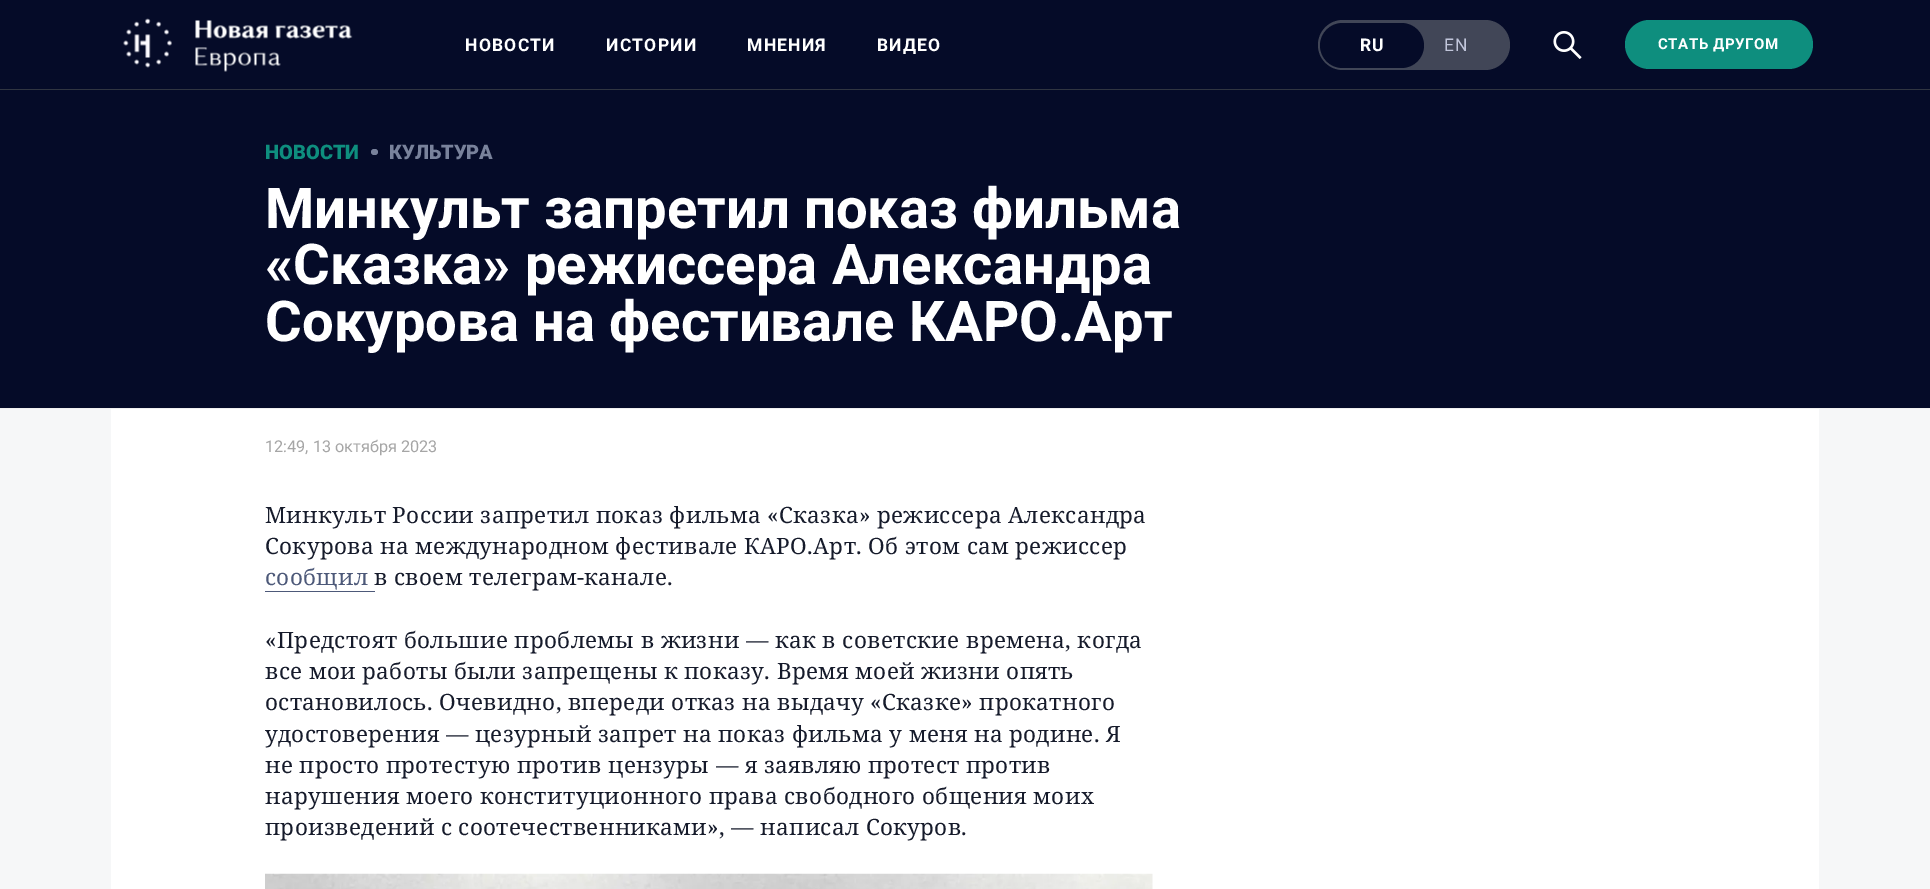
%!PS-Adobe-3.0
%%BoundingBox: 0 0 1930 889
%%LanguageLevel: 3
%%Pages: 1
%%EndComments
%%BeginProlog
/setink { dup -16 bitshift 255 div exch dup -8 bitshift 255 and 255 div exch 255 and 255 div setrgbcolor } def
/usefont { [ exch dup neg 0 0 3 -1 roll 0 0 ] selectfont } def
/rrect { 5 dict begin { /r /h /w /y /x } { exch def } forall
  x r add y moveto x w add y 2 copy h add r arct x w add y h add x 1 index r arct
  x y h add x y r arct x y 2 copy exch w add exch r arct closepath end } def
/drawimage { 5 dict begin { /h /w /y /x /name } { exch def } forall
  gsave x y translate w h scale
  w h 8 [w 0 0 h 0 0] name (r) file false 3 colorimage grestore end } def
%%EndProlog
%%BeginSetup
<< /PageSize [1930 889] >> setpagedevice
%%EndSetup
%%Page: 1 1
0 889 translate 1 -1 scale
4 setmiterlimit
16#F6F7F8 setink
0 0 1930 889 rectfill
16#050B28 setink
0 0 1930 89 rectfill
16#303541 setink
0 89 1930 1 rectfill
(img1.raw) 123 18 230 54 drawimage
/Roboto-Bold 17.5 usefont
16#FFFFFF setink
465 51 moveto 1.25 0 (НОВОСТИ) ashow
606 51 moveto 1.25 0 (ИСТОРИИ) ashow
747 51 moveto 1.25 0 (МНЕНИЯ) ashow
877 51 moveto 1.25 0 (ВИДЕО) ashow
16#414657 setink
1318 20 192 50 25 rrect fill
16#050B28 setink
1320 23 104 45 22.5 rrect fill
16#FFFFFF setink
1360 51 moveto 1 0 (RU) ashow
/Roboto-Regular 17.5 usefont
16#C1C6DB setink
1444 51 moveto 1 0 (EN) ashow
(img2.raw) 1553 31 29 28 drawimage
16#0E8E7E setink
1625 20 188 49 24.5 rrect fill
/Roboto-Bold 15 usefont
16#FFFFFF setink
1658 49 moveto 0.6 0 (СТАТЬ ДРУГОМ) ashow
16#050B28 setink
0 90 1930 318 rectfill
16#F0F0F0 setink
0 408 1930 1 rectfill
/Roboto-Black 20 usefont
16#0E8E7E setink
265 159 moveto (НОВОСТИ) show
16#79829B setink
371 149 7 6 3 rrect fill
389 159 moveto (КУЛЬТУРА) show
/Roboto-Bold 56.25 usefont
16#FFFFFF setink
[
    [(Минкульт запретил показ фильма) 265 228]
    [(«Сказка» режиссера Александра) 265 284]
    [(Сокурова на фестивале КАРО.Арт) 265 341]
] { aload pop moveto show } forall
111 409 1708 480 rectfill
/Roboto-Regular 16.25 usefont
16#A6A6A6 setink
265 452 moveto (12:49, 13 октября 2023) show
/NotoSerif-Regular 22.5 usefont
16#161B2B setink
265 523 moveto 0.35 0 (Минкульт России запретил показ фильма «Сказка» режиссера Александра) ashow
265 554 moveto 0.35 0 (Сокурова на международном фестивале КАРО.Арт. Об этом сам режиссер) ashow
16#4D5979 setink
265 585 moveto 0.35 0 (сообщил) ashow
265 591 110 1 rectfill
16#161B2B setink
374 585 moveto 0.35 0 (в своем телеграм-канале.) ashow
265 648 moveto 0.35 0 («Предстоят большие проблемы в жизни — как в советские времена, когда) ashow
265 679 moveto 0.35 0 (все мои работы были запрещены к показу. Время моей жизни опять) ashow
265 710 moveto 0.35 0 (остановилось. Очевидно, впереди отказ на выдачу «Сказке» прокатного) ashow
265 742 moveto 0.35 0 (удостоверения — цезурный запрет на показ фильма у меня на родине. Я) ashow
265 773 moveto 0.35 0 (не просто протестую против цензуры — я заявляю протест против) ashow
265 804 moveto 0.35 0 (нарушения моего конституционного права свободного общения моих) ashow
265 835 moveto 0.35 0 (произведений с соотечественниками», — написал Сокуров.) ashow
(img3.raw) 265 873 888 16 drawimage
showpage
%%EOF
